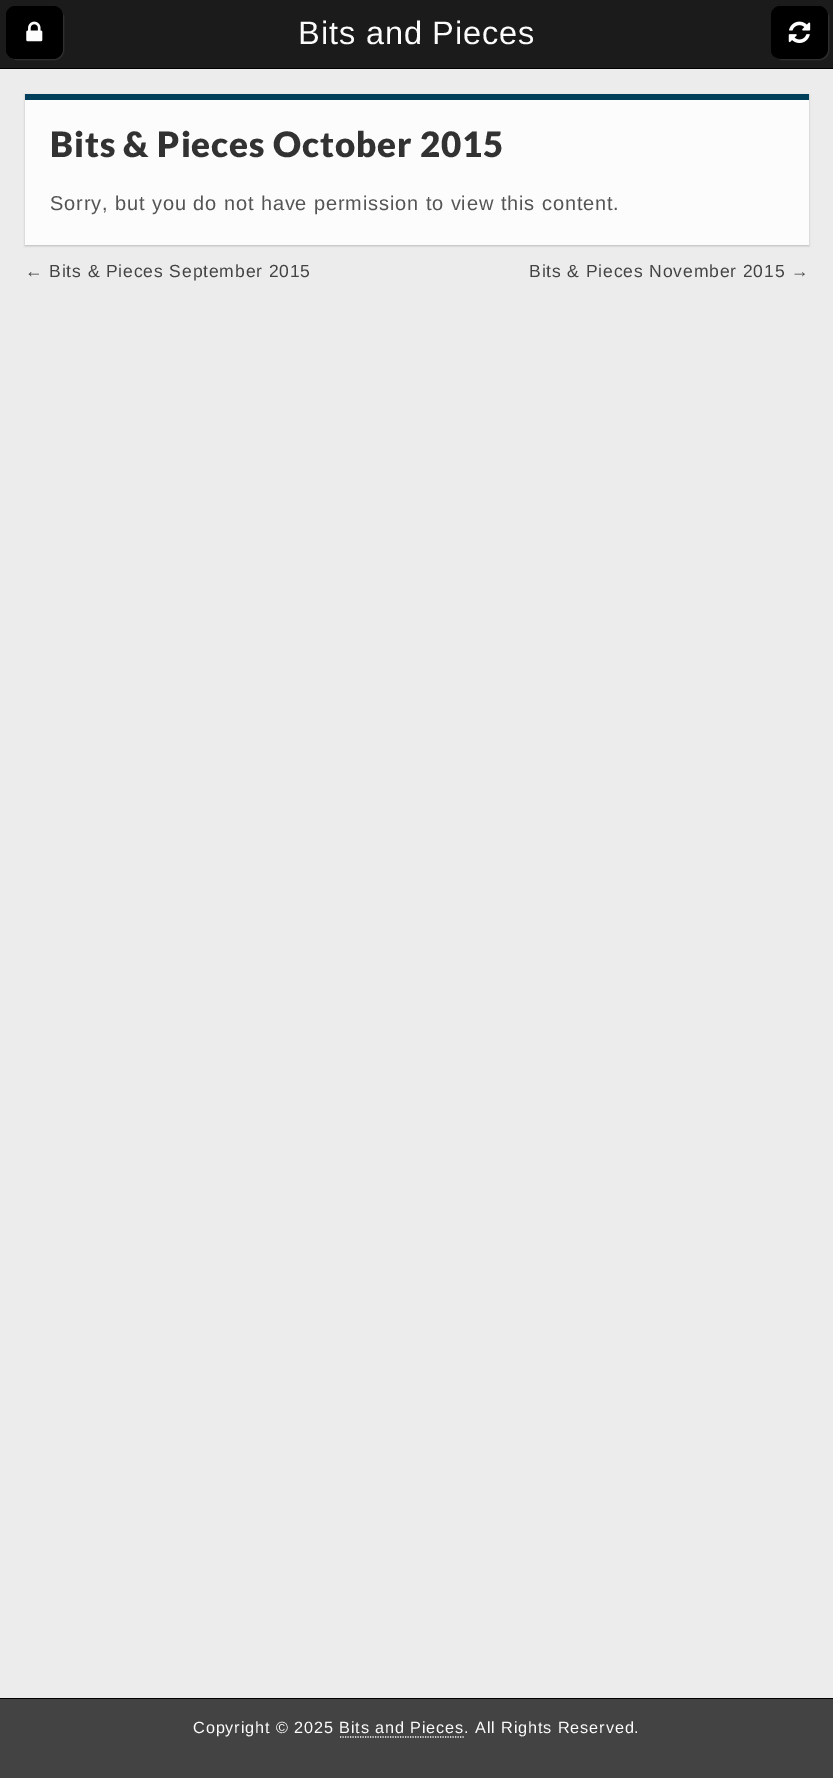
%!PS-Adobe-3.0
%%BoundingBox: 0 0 833 1778
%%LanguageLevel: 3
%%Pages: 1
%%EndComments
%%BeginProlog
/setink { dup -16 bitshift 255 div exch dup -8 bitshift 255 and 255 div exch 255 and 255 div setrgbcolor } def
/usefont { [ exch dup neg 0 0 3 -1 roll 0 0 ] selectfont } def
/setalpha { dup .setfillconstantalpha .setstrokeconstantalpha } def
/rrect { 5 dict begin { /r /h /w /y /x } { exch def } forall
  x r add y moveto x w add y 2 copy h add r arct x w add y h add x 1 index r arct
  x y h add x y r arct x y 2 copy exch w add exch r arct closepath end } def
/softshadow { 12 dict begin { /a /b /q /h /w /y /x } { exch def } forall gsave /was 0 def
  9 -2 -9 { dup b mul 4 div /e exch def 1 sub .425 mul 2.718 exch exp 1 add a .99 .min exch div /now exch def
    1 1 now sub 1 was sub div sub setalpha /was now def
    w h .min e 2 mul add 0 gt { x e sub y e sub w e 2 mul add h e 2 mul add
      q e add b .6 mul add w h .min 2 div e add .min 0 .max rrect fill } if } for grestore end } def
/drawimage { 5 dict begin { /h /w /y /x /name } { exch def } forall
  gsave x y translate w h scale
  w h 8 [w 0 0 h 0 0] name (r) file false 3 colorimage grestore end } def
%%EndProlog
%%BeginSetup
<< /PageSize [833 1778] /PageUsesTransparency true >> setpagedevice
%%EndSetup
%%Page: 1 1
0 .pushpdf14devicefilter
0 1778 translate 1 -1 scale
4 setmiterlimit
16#ECECEC setink
0 0 833 1778 rectfill
16#1B1B1B setink
0 0 833 68 rectfill
16#000000 setink
0 68 833 1 rectfill
16#323232 setink
8 8 56 52 10 0.5 1 softshadow
16#000000 setink
6 6 57 53 10 rrect fill
18 8 moveto 54 8 lineto 57 8 61 10 62 13 curveto 61 9 57 6 53 6 curveto 16 6 lineto 10 6 6 10 6 16 curveto 6 49 lineto 6 53 8 56 12 58 curveto 9 56 8 53 8 50 curveto 8 18 lineto 8 12 12 8 18 8 curveto closepath fill
(img1.raw) 26 21 17 21 drawimage
/LiberationSans-Regular 32.5 usefont
16#FCFCFC setink
298 44 moveto 0.88 0 (Bits and Pieces) ashow
16#323232 setink
773 8 56 52 10 0.5 1 softshadow
16#000000 setink
771 6 57 53 10 rrect fill
782 8 moveto 819 8 lineto 822 8 826 10 827 13 curveto 826 9 822 6 818 6 curveto 781 6 lineto 775 6 771 10 771 16 curveto 771 49 lineto 771 52 772 55 774 57 curveto 773 55 772 53 772 50 curveto 772 18 lineto 772 12 777 8 782 8 curveto closepath fill
(img2.raw) 788 21 23 22 drawimage
25 95 784 151 0 1 0.2 softshadow
16#FCFCFC setink
25 100 784 145 rectfill
16#003F5C setink
25 94 784 6 rectfill
/Lato-Black 35 usefont
16#323232 setink
50 157 moveto 0.88 0 (Bits & Pieces October 2015) ashow
/LiberationSans-Regular 20 usefont
16#545454 setink
50 210 moveto 0.88 0 (Sorry, but you do not have permission to view this content.) ashow
/LiberationSans-Regular 17.5 usefont
16#434343 setink
25 277 moveto 0.88 0 (← Bits & Pieces September 2015) ashow
529 277 moveto 0.88 0 (Bits & Pieces November 2015 →) ashow
0 1699 833 79 rectfill
16#000000 setink
0 1698 833 1 rectfill
/LiberationSans-Regular 16.25 usefont
16#FCFCFC setink
193 1733 moveto 0.88 0 (Copyright © 2025 Bits and Pieces. All Rights Reserved.) ashow
1.2 setlinewidth
[1.25 1.25] 0 setdash
340 1737 moveto 465 1737 lineto stroke
.poppdf14devicefilter showpage
%%EOF
